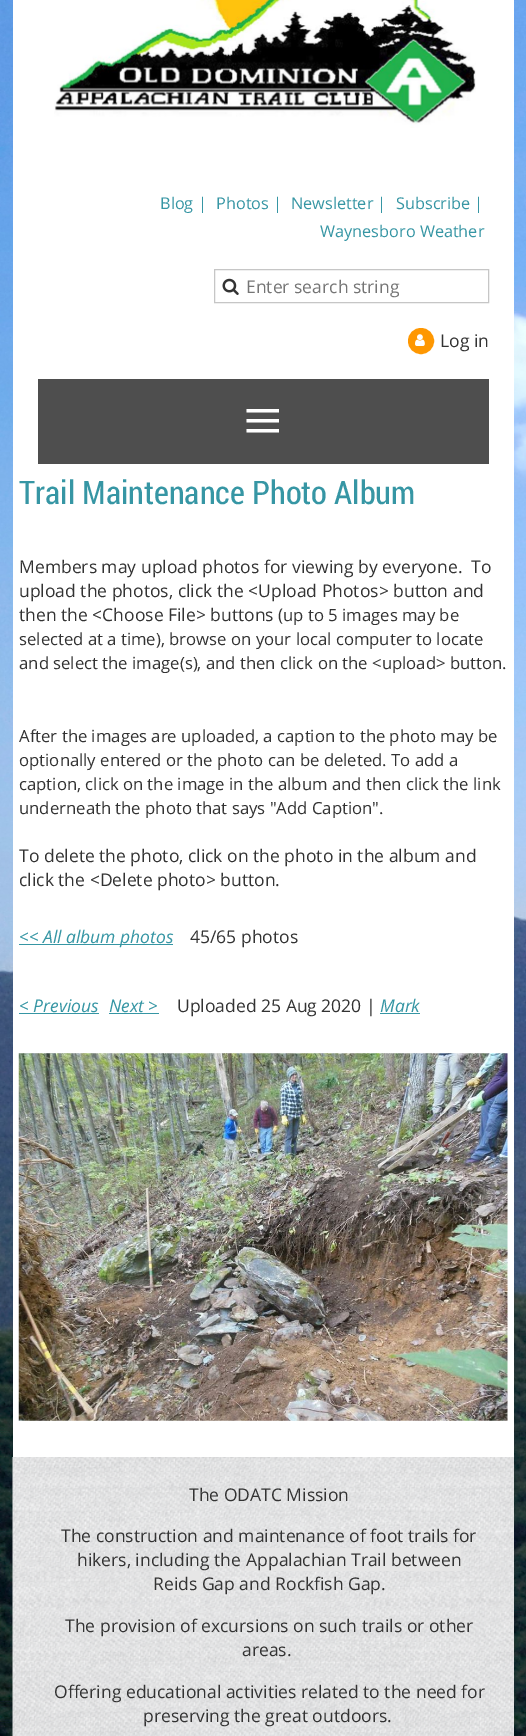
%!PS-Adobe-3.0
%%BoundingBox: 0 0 526 1736
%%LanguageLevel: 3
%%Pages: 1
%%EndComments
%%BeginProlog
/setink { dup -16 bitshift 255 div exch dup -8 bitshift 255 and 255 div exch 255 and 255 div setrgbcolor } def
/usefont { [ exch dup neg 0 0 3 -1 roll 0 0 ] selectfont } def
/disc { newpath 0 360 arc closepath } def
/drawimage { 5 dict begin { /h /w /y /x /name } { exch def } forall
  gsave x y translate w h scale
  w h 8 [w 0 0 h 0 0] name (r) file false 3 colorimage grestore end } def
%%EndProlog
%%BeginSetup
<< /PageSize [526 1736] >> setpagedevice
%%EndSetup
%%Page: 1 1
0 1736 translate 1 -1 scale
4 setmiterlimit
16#FFFFFF setink
0 0 526 1736 rectfill
(img1.raw) 0 0 526 1736 drawimage
13 0 501 1458 rectfill
(img2.raw) 54 0 422 128 drawimage
/OpenSans-Regular 16.25 usefont
16#3696A4 setink
[
    [(Blog |) 160 209]
    [(Photos |) 216 209]
    [(Newsletter |) 291 209]
    [(Subscribe |) 396 209]
    [(Waynesboro Weather) 320 237]
] { aload pop moveto show } forall
16#C6C6C6 setink
214.5 269.5 274 33 rectstroke
(img3.raw) 222 278 17 17 drawimage
/OpenSans-Regular 17.5 usefont
16#757575 setink
246 293 moveto (Enter search string) show
16#FE9701 setink
421 341 11.5 disc gsave fill grestore
3 setlinewidth
stroke
(img4.raw) 415 334 10 12 drawimage
16#333333 setink
440 347 moveto (Log in) show
16#4E4E4E setink
38 379 451 85 rectfill
/LiberationSerif-Regular 70 usefont
16#FFFFFF setink
243 444 moveto (≡) show
/RobotoCondensed-Regular 32.5 usefont
16#3696A4 setink
19 504 moveto (Trail Maintenance Photo Album) show
/OpenSans-Regular 17.5 usefont
16#333333 setink
[
    [(Members may upload photos for viewing by everyone.  To) 19 573]
    [(upload the photos, click the <Upload Photos> button and) 19 597]
    [(then the <Choose File> buttons \() 19 621]
] { aload pop moveto show } forall
/OpenSans-Regular 16.7 usefont
[
    [(up to 5 images may be) 283 621]
    [(selected at a time\), browse on your local computer to locate) 19 645]
    [(and select the image\(s\), and then click on the <upload> button.) 19 669]
    [(After the images are uploaded, a caption to the photo may be) 19 742]
    [(optionally entered or the photo can be deleted. To add a) 19 766]
    [(caption, click on the image in the album and then click the link) 19 790]
    [(underneath the photo that says "Add Caption".) 19 814]
] { aload pop moveto show } forall
/OpenSans-Regular 17.5 usefont
19 862 moveto (To delete the photo, click on the photo in the album and) show
19 886 moveto (click the <Delete photo> button.) show
16#3696A4 setink
19 944 154 1 rectfill
/OpenSans-Italic 17.5 usefont
19 943 moveto (<< All album photos) show
/OpenSans-Regular 17.5 usefont
16#333333 setink
190 943 moveto (45/65 photos) show
/OpenSans-Italic 17.5 usefont
16#3696A4 setink
19 1012 moveto (< Previous) show
19 1013 80 1 rectfill
109 1012 moveto (Next >) show
109 1013 50 1 rectfill
/OpenSans-Regular 17.5 usefont
16#333333 setink
177 1012 moveto (Uploaded 25 Aug 2020 |) show
/OpenSans-Italic 17.5 usefont
16#3696A4 setink
380 1012 moveto (Mark) show
380 1013 40 1 rectfill
(img5.raw) 18 1053 490 368 drawimage
(img6.raw) 12 1457 502 279 drawimage
/OpenSans-Regular 17.5 usefont
16#333333 setink
[
    [(The ODATC Mission) 189 1501]
    [(The construction and maintenance of foot trails for) 61 1542]
    [(hikers, including the) 77 1566]
] { aload pop moveto show } forall
16#E6E6E6 setink
246 1548 215 23 rectfill
16#333333 setink
246 1566 moveto (Appalachian Trail between) show
16#E6E6E6 setink
153 1571 48 24 rectfill
16#333333 setink
[
    [(Reids Gap and Rockfish Gap.) 153 1590]
    [(The provision of excursions on such trails or other) 65 1632]
    [(areas.) 242 1656]
    [(Offering educational activities related to the need for) 54 1698]
    [(preserving the great outdoors.) 143 1722]
] { aload pop moveto show } forall
showpage
%%EOF
